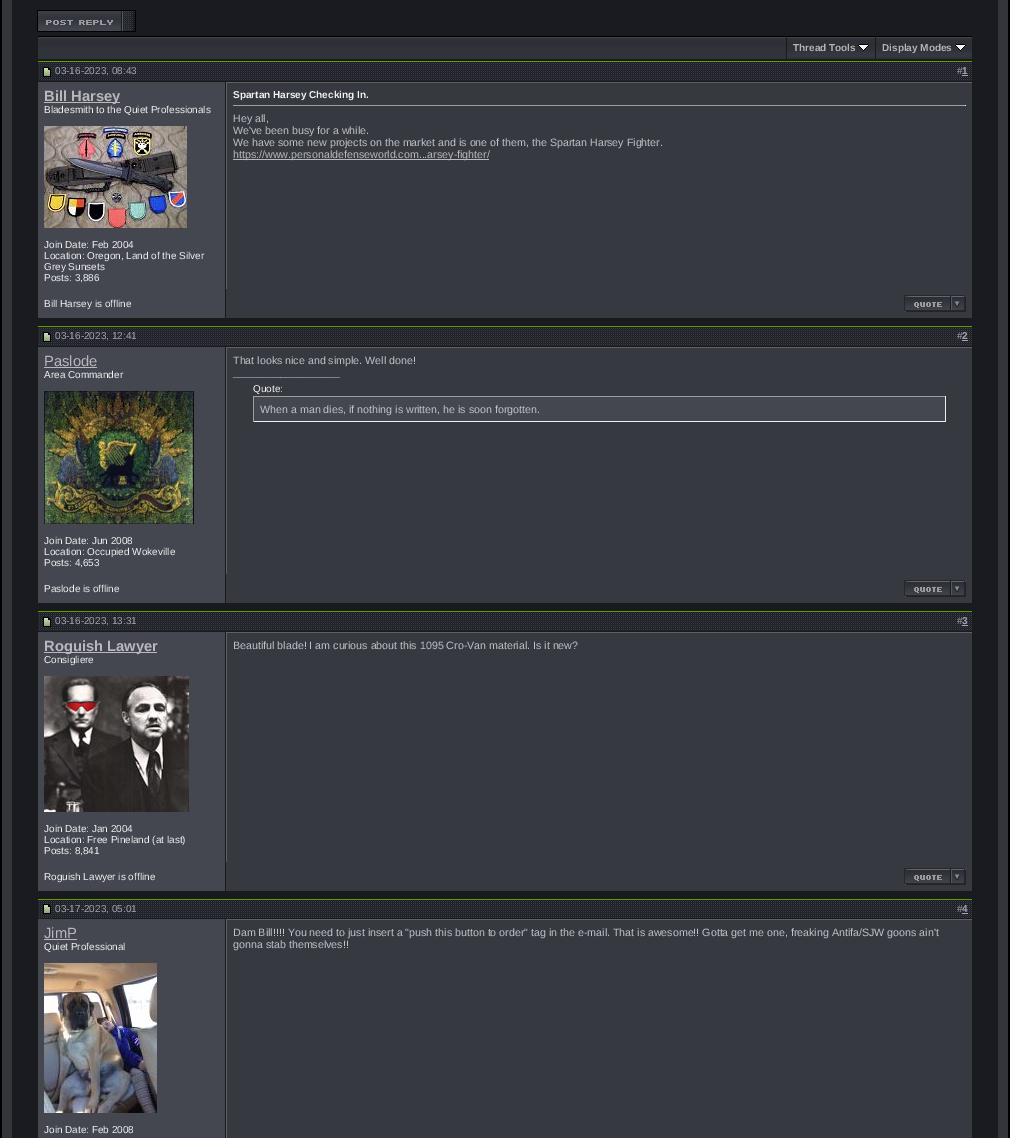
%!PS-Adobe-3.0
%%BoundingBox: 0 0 1010 1138
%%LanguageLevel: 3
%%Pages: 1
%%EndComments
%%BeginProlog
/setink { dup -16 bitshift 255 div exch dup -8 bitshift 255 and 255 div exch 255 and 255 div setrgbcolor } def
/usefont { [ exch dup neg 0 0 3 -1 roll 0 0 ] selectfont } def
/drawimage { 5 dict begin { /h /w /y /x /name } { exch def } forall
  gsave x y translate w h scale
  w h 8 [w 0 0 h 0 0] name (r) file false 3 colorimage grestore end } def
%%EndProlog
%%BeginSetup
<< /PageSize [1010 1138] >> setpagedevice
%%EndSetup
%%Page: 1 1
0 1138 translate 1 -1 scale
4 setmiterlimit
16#000000 setink
0 0 1010 1138 rectfill
16#34353B setink
2 0 1006 1138 rectfill
16#191B21 setink
12 0 986 1138 rectfill
(img1.raw) 37 10 99 22 drawimage
16#181B16 setink
37 35 936 25 rectfill
16#31333B setink
38 46 748 13 rectfill
(img2.raw) 38 36 748 10 drawimage
(img3.raw) 787 36 88 23 drawimage
/LiberationSans-Bold 10 usefont
16#B5B5B6 setink
793 51 moveto (Thread Tools) show
(img4.raw) 858 44 11 7 drawimage
(img5.raw) 876 36 96 23 drawimage
882 51 moveto (Display Modes) show
(img4.raw) 955 44 11 7 drawimage
(img6.raw) 38 61 188 20 drawimage
[
    [37 60 936 1 16#181B16]
    [37 81 189 1 16#181B16]
    [37 60 1 229 16#181B16]
] { aload pop setink rectfill } forall
(img7.raw) 43 67 8 10 drawimage
/LiberationSans-Regular 10 usefont
16#A5A5B2 setink
55 74 moveto (03-16-2023, 08:43) show
(img8.raw) 226 61 746 20 drawimage
16#181B16 setink
972 60 1 22 rectfill
226 81 747 1 rectfill
16#A5A5B2 setink
957 74 moveto (#) show
/LiberationSans-Bold 10 usefont
962 74 moveto (1) show
[
    [962 75 6 1 16#A5A5B2]
    [38 82 187 236 16#44474F]
    [225 82 1 237 16#181B16]
    [44 102 76 1 16#B9B9BD]
] { aload pop setink rectfill } forall
/LiberationSans-Bold 14.75 usefont
44 101 moveto (Bill Harsey) show
/LiberationSans-Regular 10 usefont
16#F1F1F1 setink
44 113 moveto (Bladesmith to the Quiet Professionals) show
(img9.raw) 44 126 143 102 drawimage
[
    [(Join Date: Feb 2004) 44 248]
    [(Location: Oregon, Land of the Silver) 44 259]
    [(Grey Sunsets) 44 270]
    [(Posts: 3,886) 44 281]
] { aload pop moveto show } forall
[
    [227 83 745 206 16#363940]
    [226 82 747 1 16#5F6168]
    [972 82 1 237 16#181B16]
    [226 82 1 207 16#5F6168]
] { aload pop setink rectfill } forall
/LiberationSans-Bold 10 usefont
16#F1F1F1 setink
233 98 moveto (Spartan Harsey Checking In.) show
16#9F9F9F setink
233 105 733 1 rectfill
16#EEEEEE setink
965 105 1 1 rectfill
/LiberationSans-Regular 10.67 usefont
16#C1C1C7 setink
[
    [(Hey all,) 233 122]
    [(We've been busy for a while.) 233 134]
    [(We have some new projects on the market and is one of them, the Spartan Harsey Fighter.) 233 146]
] { aload pop moveto show } forall
16#B9B9BD setink
233 159 256 1 rectfill
233 158 moveto (https://www.personaldefenseworld.com...arsey-fighter/) show
16#181B16 setink
37 318 936 1 rectfill
37 289 1 30 rectfill
/LiberationSans-Regular 10 usefont
16#F1F1F1 setink
44 307 moveto (Bill Harsey is offline) show
16#363940 setink
226 289 746 29 rectfill
(img10.raw) 904 295 62 17 drawimage
(img6.raw) 38 326 188 20 drawimage
[
    [37 325 936 1 16#181B16]
    [37 346 189 1 16#181B16]
    [37 325 1 249 16#181B16]
] { aload pop setink rectfill } forall
(img7.raw) 43 332 8 10 drawimage
16#A5A5B2 setink
55 339 moveto (03-16-2023, 12:41) show
(img8.raw) 226 326 746 20 drawimage
16#181B16 setink
972 325 1 22 rectfill
226 346 747 1 rectfill
16#A5A5B2 setink
957 339 moveto (#) show
/LiberationSans-Bold 10 usefont
962 339 moveto (2) show
[
    [962 340 6 1 16#A5A5B2]
    [38 347 187 256 16#44474F]
    [225 347 1 257 16#181B16]
] { aload pop setink rectfill } forall
/LiberationSans-Regular 14.75 usefont
16#B9B9BD setink
44 366 moveto (Paslode) show
44 367 53 1 rectfill
/LiberationSans-Regular 10 usefont
16#F1F1F1 setink
44 378 moveto (Area Commander) show
(img11.raw) 44 391 150 133 drawimage
[
    [(Join Date: Jun 2008) 44 544]
    [(Location: Occupied Wokeville) 44 555]
    [(Posts: 4,653) 44 566]
] { aload pop moveto show } forall
[
    [227 348 745 226 16#363940]
    [226 347 747 1 16#5F6168]
    [972 347 1 257 16#181B16]
    [226 347 1 227 16#5F6168]
] { aload pop setink rectfill } forall
/LiberationSans-Regular 10.67 usefont
16#C1C1C7 setink
233 364 moveto (That looks nice and simple. Well done!) show
233 376 moveto (__________________) show
/LiberationSans-Regular 10 usefont
16#F1F1F1 setink
253 392 moveto (Quote:) show
[
    [254 397 691 24 16#44474F]
    [253 396 693 1 16#9F9F9F]
    [945 396 1 26 16#EEEEEE]
    [253 421 693 1 16#EEEEEE]
    [253 396 1 26 16#9F9F9F]
] { aload pop setink rectfill } forall
/LiberationSans-Regular 10.67 usefont
16#C1C1C7 setink
260 413 moveto (When a man dies, if nothing is written, he is soon forgotten.) show
16#181B16 setink
37 603 936 1 rectfill
37 574 1 30 rectfill
/LiberationSans-Regular 10 usefont
16#F1F1F1 setink
44 592 moveto (Paslode is offline) show
16#363940 setink
226 574 746 29 rectfill
(img10.raw) 904 580 62 17 drawimage
(img6.raw) 38 611 188 20 drawimage
[
    [37 610 936 1 16#181B16]
    [37 631 189 1 16#181B16]
    [37 610 1 252 16#181B16]
] { aload pop setink rectfill } forall
(img7.raw) 43 617 8 10 drawimage
16#A5A5B2 setink
55 624 moveto (03-16-2023, 13:31) show
(img8.raw) 226 611 746 20 drawimage
16#181B16 setink
972 610 1 22 rectfill
226 631 747 1 rectfill
16#A5A5B2 setink
957 624 moveto (#) show
/LiberationSans-Bold 10 usefont
962 624 moveto (3) show
[
    [962 625 6 1 16#A5A5B2]
    [38 632 187 259 16#44474F]
    [225 632 1 260 16#181B16]
    [44 652 113 1 16#B9B9BD]
] { aload pop setink rectfill } forall
/LiberationSans-Bold 14.75 usefont
44 651 moveto (Roguish Lawyer) show
/LiberationSans-Regular 10 usefont
16#F1F1F1 setink
44 663 moveto (Consigliere) show
(img12.raw) 44 676 145 136 drawimage
[
    [(Join Date: Jan 2004) 44 832]
    [(Location: Free Pineland \(at last\)) 44 843]
    [(Posts: 8,841) 44 854]
] { aload pop moveto show } forall
[
    [227 633 745 229 16#363940]
    [226 632 747 1 16#5F6168]
    [972 632 1 260 16#181B16]
    [226 632 1 230 16#5F6168]
] { aload pop setink rectfill } forall
/LiberationSans-Regular 10.67 usefont
16#C1C1C7 setink
233 649 moveto (Beautiful blade! I am curious about this 1095 Cro-Van material. Is it new?) show
16#181B16 setink
37 891 936 1 rectfill
37 862 1 30 rectfill
/LiberationSans-Regular 10 usefont
16#F1F1F1 setink
44 880 moveto (Roguish Lawyer is offline) show
16#363940 setink
226 862 746 29 rectfill
(img10.raw) 904 868 62 17 drawimage
(img13.raw) 38 899 188 19 drawimage
[
    [37 898 936 1 16#181B16]
    [37 918 189 1 16#181B16]
    [37 898 1 240 16#181B16]
] { aload pop setink rectfill } forall
(img14.raw) 43 904 8 10 drawimage
16#A5A5B2 setink
55 912 moveto (03-17-2023, 05:01) show
(img15.raw) 226 899 746 19 drawimage
16#181B16 setink
972 898 1 21 rectfill
226 918 747 1 rectfill
16#A5A5B2 setink
957 912 moveto (#) show
/LiberationSans-Bold 10 usefont
962 912 moveto (4) show
[
    [962 913 6 1 16#A5A5B2]
    [38 919 187 219 16#44474F]
    [225 919 1 219 16#181B16]
] { aload pop setink rectfill } forall
/LiberationSans-Regular 14.75 usefont
16#B9B9BD setink
44 938 moveto (JimP) show
44 939 33 1 rectfill
/LiberationSans-Regular 10 usefont
16#F1F1F1 setink
44 950 moveto (Quiet Professional) show
(img16.raw) 44 963 113 150 drawimage
44 1133 moveto (Join Date: Feb 2008) show
[
    [227 920 745 218 16#363940]
    [226 919 747 1 16#5F6168]
    [972 919 1 219 16#181B16]
    [226 919 1 219 16#5F6168]
] { aload pop setink rectfill } forall
/LiberationSans-Regular 10.67 usefont
16#C1C1C7 setink
233 936 moveto (Dam Bill!!!! You need to just insert a "push this button to order" tag in the e-mail. That is awesome!! Gotta get me one, freaking Antifa/SJW goons ain't) show
233 948 moveto (gonna stab themselves!!) show
showpage
%%EOF
